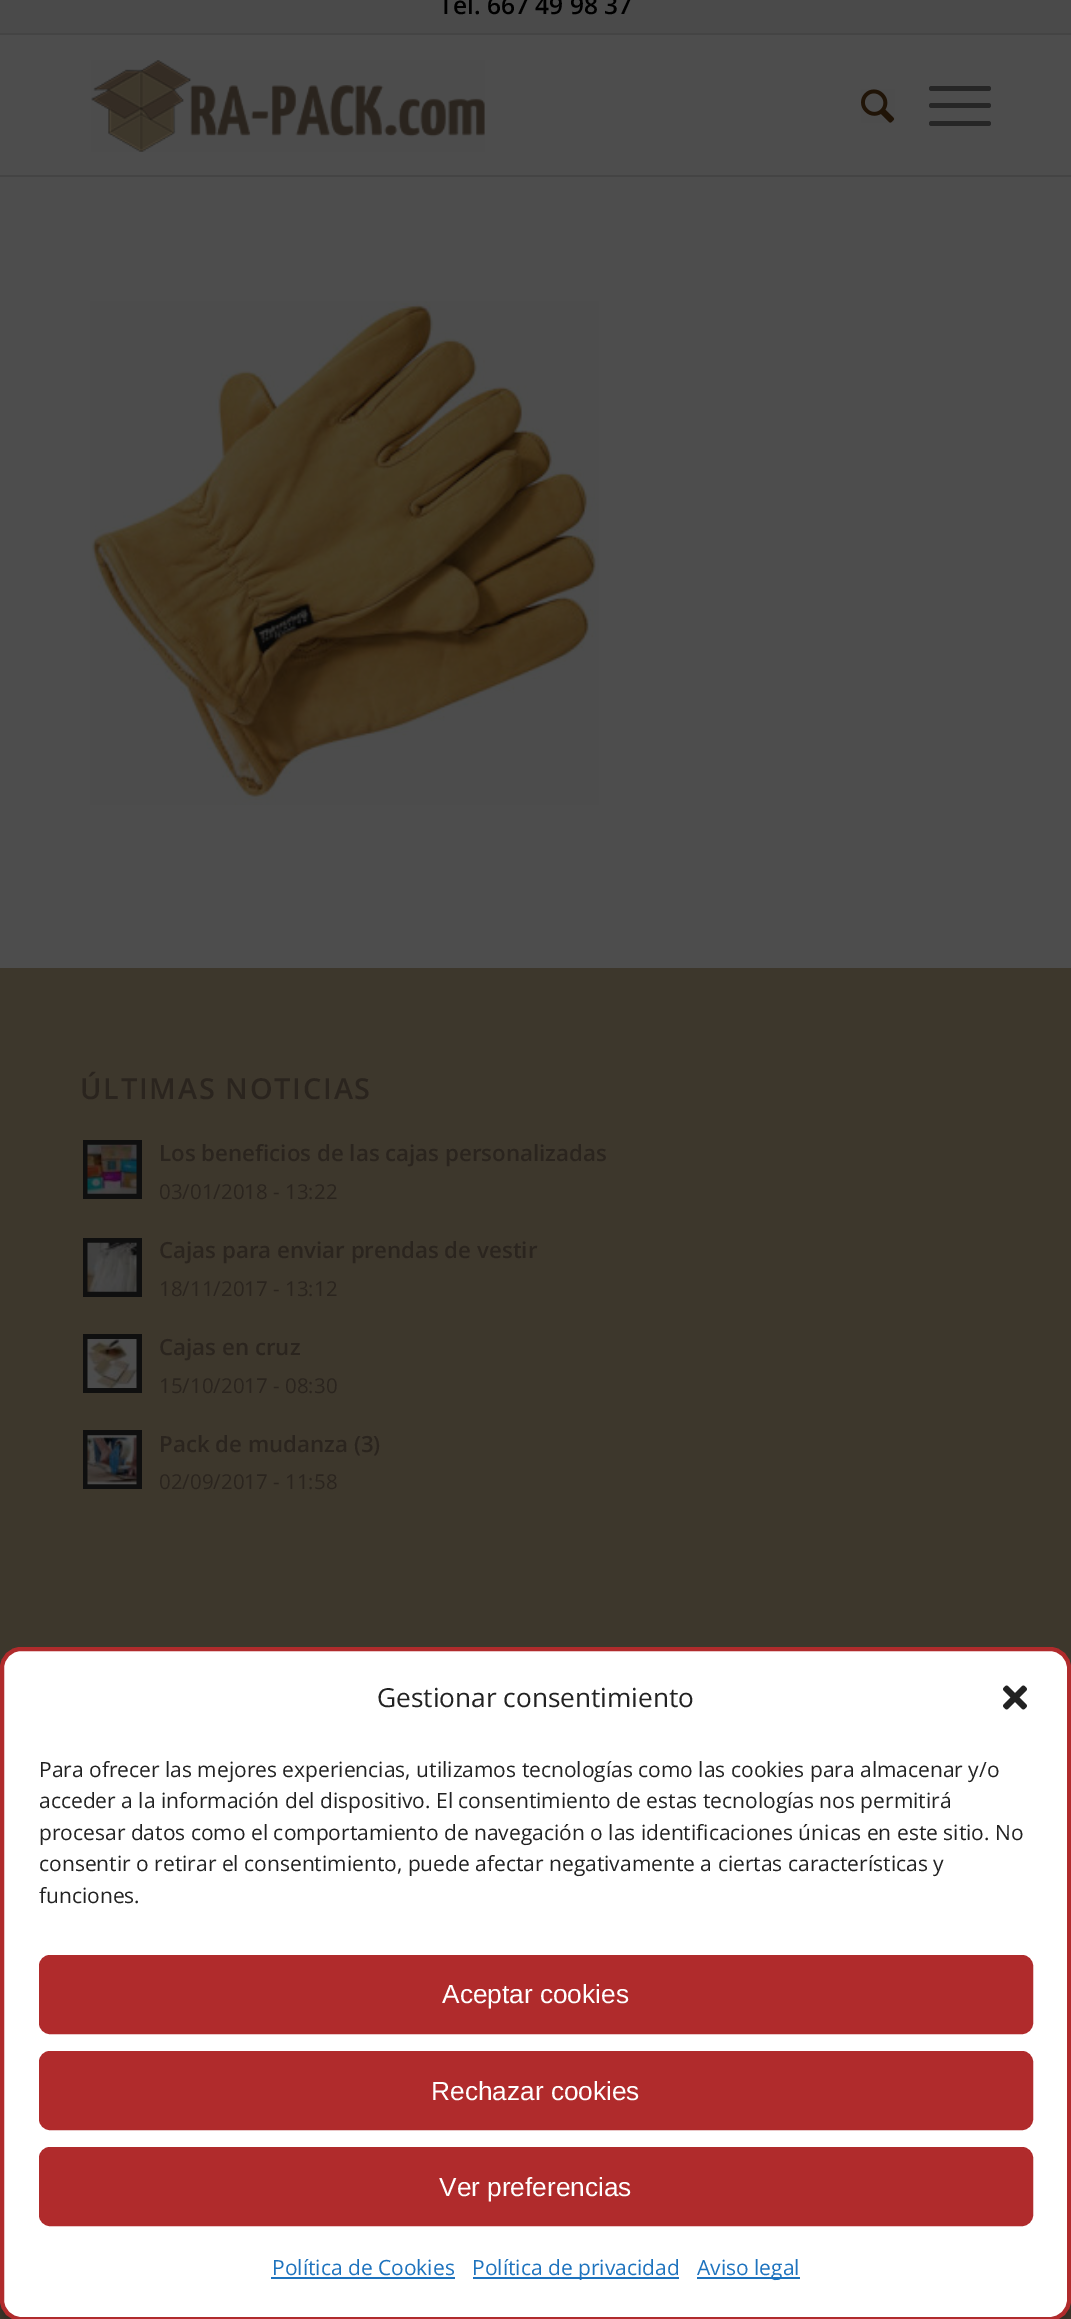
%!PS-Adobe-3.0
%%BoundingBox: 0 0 1071 2319
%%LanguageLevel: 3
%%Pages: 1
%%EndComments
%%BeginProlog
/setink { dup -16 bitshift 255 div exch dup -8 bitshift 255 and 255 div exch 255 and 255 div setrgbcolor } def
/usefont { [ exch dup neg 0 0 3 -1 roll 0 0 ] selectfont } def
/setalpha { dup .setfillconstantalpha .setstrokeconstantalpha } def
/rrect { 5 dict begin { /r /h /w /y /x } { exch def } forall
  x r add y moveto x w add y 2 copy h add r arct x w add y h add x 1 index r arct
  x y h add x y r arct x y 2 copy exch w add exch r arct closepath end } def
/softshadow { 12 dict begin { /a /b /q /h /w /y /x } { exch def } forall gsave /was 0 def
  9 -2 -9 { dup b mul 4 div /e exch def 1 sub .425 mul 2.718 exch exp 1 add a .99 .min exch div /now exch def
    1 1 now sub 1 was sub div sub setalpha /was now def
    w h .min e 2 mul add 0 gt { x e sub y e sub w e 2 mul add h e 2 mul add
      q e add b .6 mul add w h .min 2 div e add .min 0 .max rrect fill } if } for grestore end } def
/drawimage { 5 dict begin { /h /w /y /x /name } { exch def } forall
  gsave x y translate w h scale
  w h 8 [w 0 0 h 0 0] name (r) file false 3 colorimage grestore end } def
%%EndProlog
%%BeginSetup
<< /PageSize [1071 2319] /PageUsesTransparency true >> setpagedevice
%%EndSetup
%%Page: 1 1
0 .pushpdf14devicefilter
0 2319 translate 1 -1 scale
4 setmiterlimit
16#4D4D4D setink
0 0 1071 2319 rectfill
16#4A4A4A setink
0 0 1071 33 rectfill
16#444444 setink
0 33 1071 2 rectfill
/OpenSans-SemiBold 24.5 usefont
16#000000 setink
439 14 moveto (Tel. 667 49 98 37) show
16#444444 setink
0 175 1071 2 rectfill
(img1.raw) 91 60 394 92 drawimage
(img2.raw) 861 89 34 34 drawimage
16#262626 setink
929 103 62 5 2.5 rrect fill
929 86 62 5 2.5 rrect fill
929 121 62 5 2.5 rrect fill
(img3.raw) 90 301 509 504 drawimage
16#3D372C setink
0 968 1071 1351 rectfill
/OpenSans-SemiBold 28.9 usefont
16#2A241E setink
80 1099 moveto 1.75 0 (ÚLTIMAS NOTICIAS) ashow
16#0F0F0F setink
83 1140 59 59 rectfill
(img4.raw) 87 1144 50 50 drawimage
/OpenSans-SemiBold 22.3 usefont
16#2A241E setink
159 1161 moveto (Los beneficios de las cajas personalizadas) show
/OpenSans-Regular 20.5 usefont
159 1199 moveto (03/01/2018 - 13:22) show
16#0F0F0F setink
83 1238 59 59 rectfill
(img5.raw) 87 1242 50 50 drawimage
/OpenSans-SemiBold 22.3 usefont
16#2A241E setink
159 1258 moveto (Cajas para enviar prendas de vestir) show
/OpenSans-Regular 20.5 usefont
159 1296 moveto (18/11/2017 - 13:12) show
16#0F0F0F setink
83 1334 59 59 rectfill
(img6.raw) 87 1339 50 49 drawimage
/OpenSans-SemiBold 22.3 usefont
16#2A241E setink
159 1355 moveto (Cajas en cruz) show
/OpenSans-Regular 20.5 usefont
159 1393 moveto (15/10/2017 - 08:30) show
16#0F0F0F setink
83 1430 59 59 rectfill
(img7.raw) 87 1435 50 50 drawimage
/OpenSans-SemiBold 22.3 usefont
16#2A241E setink
159 1452 moveto (Pack de mudanza \(3\)) show
/OpenSans-Regular 20.5 usefont
159 1489 moveto (02/09/2017 - 11:58) show
16#000000 setink
0 1657 1071 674 21 5 0.23 softshadow
16#FFFFFF setink
2 1649 1067 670 19 rrect gsave fill grestore
16#B02B2C setink
4 setlinewidth
stroke
/OpenSans-Regular 26.25 usefont
16#222222 setink
377 1707 moveto (Gestionar consentimiento) show
(img8.raw) 1003 1685 24 25 drawimage
/OpenSans-Regular 21 usefont
[
    [(Para ofrecer las mejores experiencias, utilizamos tecnologías como las cookies para almacenar y/o) 39 1777]
    [(acceder a la información del dispositivo. El consentimiento de estas tecnologías nos permitirá) 39 1808]
    [(procesar datos como el comportamiento de navegación o las identificaciones únicas en este sitio. No) 39 1840]
    [(consentir o retirar el consentimiento, puede afectar negativamente a ciertas características y) 39 1871]
    [(funciones.) 39 1903]
] { aload pop moveto show } forall
16#B02B2C setink
40 1956 992 77 10 rrect gsave fill grestore
2 setlinewidth
stroke
/LiberationSans-Regular 26.25 usefont
16#FFFFFF setink
442 2003 moveto (Aceptar cookies) show
16#B02B2C setink
40 2052 992 77 10 rrect gsave fill grestore
stroke
16#FFFFFF setink
431 2100 moveto (Rechazar cookies) show
16#B02B2C setink
40 2148 992 77 10 rrect gsave fill grestore
stroke
16#FFFFFF setink
439 2196 moveto (Ver preferencias) show
/OpenSans-Regular 21 usefont
16#1E73BE setink
272 2275 moveto (Política de Cookies) show
271 2277 184 2 rectfill
473 2277 206 2 rectfill
472 2275 moveto (Política de privacidad) show
697 2277 103 2 rectfill
697 2275 moveto (Aviso legal) show
.poppdf14devicefilter showpage
%%EOF
